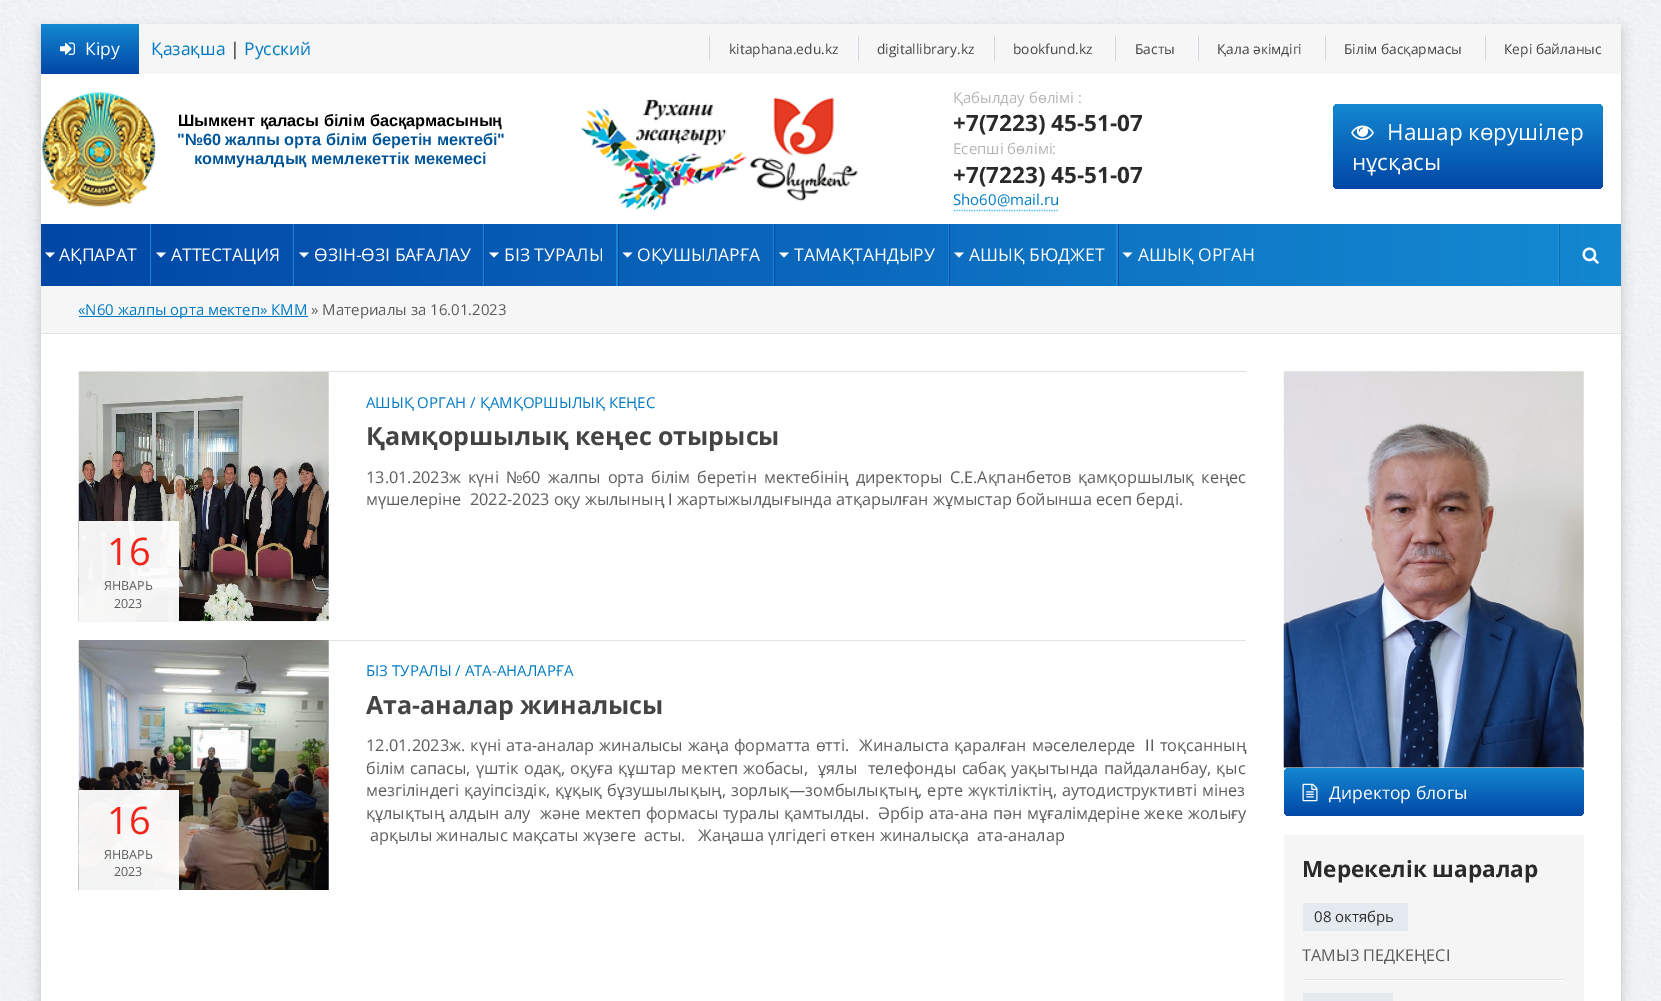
%!PS-Adobe-3.0
%%BoundingBox: 0 0 1661 1001
%%LanguageLevel: 3
%%Pages: 1
%%EndComments
%%BeginProlog
/setink { dup -16 bitshift 255 div exch dup -8 bitshift 255 and 255 div exch 255 and 255 div setrgbcolor } def
/usefont { [ exch dup neg 0 0 3 -1 roll 0 0 ] selectfont } def
/setalpha { dup .setfillconstantalpha .setstrokeconstantalpha } def
/rrect { 5 dict begin { /r /h /w /y /x } { exch def } forall
  x r add y moveto x w add y 2 copy h add r arct x w add y h add x 1 index r arct
  x y h add x y r arct x y 2 copy exch w add exch r arct closepath end } def
/softshadow { 12 dict begin { /a /b /q /h /w /y /x } { exch def } forall gsave /was 0 def
  9 -2 -9 { dup b mul 4 div /e exch def 1 sub .425 mul 2.718 exch exp 1 add a .99 .min exch div /now exch def
    1 1 now sub 1 was sub div sub setalpha /was now def
    w h .min e 2 mul add 0 gt { x e sub y e sub w e 2 mul add h e 2 mul add
      q e add b .6 mul add w h .min 2 div e add .min 0 .max rrect fill } if } for grestore end } def
/drawimage { 5 dict begin { /h /w /y /x /name } { exch def } forall
  gsave x y translate w h scale
  w h 8 [w 0 0 h 0 0] name (r) file false 3 colorimage grestore end } def
%%EndProlog
%%BeginSetup
<< /PageSize [1661 1001] /PageUsesTransparency true >> setpagedevice
%%EndSetup
%%Page: 1 1
0 .pushpdf14devicefilter
0 1001 translate 1 -1 scale
4 setmiterlimit
16#FFFFFF setink
0 0 1661 1001 rectfill
(img1.raw) 0 0 1661 1001 drawimage
16#000000 setink
41 30 1580 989 0 6 0.2 softshadow
16#FFFFFF setink
41 74 1580 927 rectfill
16#F6F6F6 setink
139 24 1482 50 rectfill
gsave 41 24 moveto 139 24 lineto 139 74 lineto 41 74 lineto closepath clip newpath
<< /ShadingType 2 /ColorSpace /DeviceRGB /Coords [90 74 90 24] /Extend [true true] /Function << /FunctionType 2 /Domain [0 1] /C0 [0.004 0.278 0.651] /C1 [0.078 0.533 0.82] /N 1 >> >> shfill grestore
(img2.raw) 60 42 15 13 drawimage
/OpenSans-Regular 17.5 usefont
16#FFFFFF setink
85 55 moveto (Кіру) show
16#007AC2 setink
151 55 moveto (Қазақша) show
16#2A2A2A setink
230 55 moveto (|) show
16#007AC2 setink
244 55 moveto (Русский) show
16#F8F9FC setink
708 36 moveto 708 61 lineto 709 61 lineto 709 36 lineto 856 36 lineto closepath fill
16#D4D5D8 setink
709 36 1 25 rectfill
/OpenSans-Regular 13.75 usefont
16#444444 setink
729 54 moveto (kitaphana.edu.kz) show
16#F8F9FC setink
856 36 moveto 856 61 lineto 858 61 lineto 858 36 lineto 993 36 lineto closepath fill
16#D4D5D8 setink
858 36 1 25 rectfill
16#444444 setink
877 54 moveto (digitallibrary.kz) show
16#F8F9FC setink
993 36 moveto 993 61 lineto 994 61 lineto 994 36 lineto 1110 36 lineto closepath fill
16#D4D5D8 setink
994 36 1 25 rectfill
16#444444 setink
1013 54 moveto (bookfund.kz) show
16#F8F9FC setink
1114 36 moveto 1114 61 lineto 1115 61 lineto 1115 36 lineto 1193 36 lineto closepath fill
16#D4D5D8 setink
1115 36 1 25 rectfill
16#444444 setink
1135 54 moveto (Басты) show
16#F8F9FC setink
1196 36 moveto 1196 61 lineto 1198 61 lineto 1198 36 lineto 1320 36 lineto closepath fill
16#D4D5D8 setink
1198 36 1 25 rectfill
16#444444 setink
1217 54 moveto (Қала әкімдігі) show
16#F8F9FC setink
1324 36 moveto 1324 61 lineto 1325 61 lineto 1325 36 lineto 1480 36 lineto closepath fill
16#D4D5D8 setink
1325 36 1 25 rectfill
16#444444 setink
1344 54 moveto (Білім басқармасы) show
16#F8F9FC setink
1484 36 moveto 1484 61 lineto 1485 61 lineto 1485 36 lineto 1601 36 lineto closepath fill
16#D4D5D8 setink
1485 36 1 25 rectfill
16#444444 setink
1504 54 moveto (Кері байланыс) show
(img3.raw) 42 92 114 115 drawimage
/LiberationSans-Bold 16.25 usefont
16#000000 setink
178 126 moveto (Шымкент қаласы білім басқармасының) show
16#005599 setink
177 145 moveto ("№60 жалпы орта білім беретін мектебі") show
194 164 moveto (коммуналдық мемлекеттік мекемесі) show
(img4.raw) 581 97 277 114 drawimage
/OpenSans-Regular 15 usefont
16#B5B5B5 setink
953 103 moveto (Қабылдау бөлімі :) show
/OpenSans-Bold 22.5 usefont
16#2A2A2A setink
953 131 moveto (+7\(7223\) 45-51-07) show
/OpenSans-Regular 15 usefont
16#B5B5B5 setink
953 154 moveto (Есепші бөлімі:) show
/OpenSans-Bold 22.5 usefont
16#2A2A2A setink
953 183 moveto (+7\(7223\) 45-51-07) show
16#40BAFF setink
1.2 setlinewidth
[1.25 1.25] 0 setdash
954 210.5 moveto 1059 210.5 lineto stroke
/OpenSans-Regular 15 usefont
16#007AC2 setink
953 205 moveto (Sho60@mail.ru) show
gsave 1333 104 270 85 5 rrect clip newpath
<< /ShadingType 2 /ColorSpace /DeviceRGB /Coords [1468 189 1468 104] /Extend [true true] /Function << /FunctionType 2 /Domain [0 1] /C0 [0.004 0.278 0.651] /C1 [0.078 0.533 0.82] /N 1 >> >> shfill grestore
(img5.raw) 1351 125 23 15 drawimage
/OpenSans-Regular 22.5 usefont
16#FFFFFF setink
1387 140 moveto (Нашар көрушілер) show
1352 170 moveto (нұсқасы) show
gsave 1560 224 moveto 1621 224 lineto 1621 286 lineto 1560 286 lineto closepath clip newpath
<< /ShadingType 2 /ColorSpace /DeviceRGB /Coords [41 255 1621 255] /Extend [true true] /Function << /FunctionType 2 /Domain [0 1] /C0 [0.004 0.278 0.651] /C1 [0.078 0.533 0.82] /N 1 >> >> shfill grestore
gsave 41 224 moveto 1558 224 lineto 1558 286 lineto 41 286 lineto closepath clip newpath
<< /ShadingType 2 /ColorSpace /DeviceRGB /Coords [41 255 1559 255] /Extend [true true] /Function << /FunctionType 2 /Domain [0 1] /C0 [0.004 0.278 0.651] /C1 [0.078 0.533 0.82] /N 1 >> >> shfill grestore
45 252.5 moveto 55 252.5 lineto 50 257.5 lineto closepath fill
/OpenSans-Regular 17.5 usefont
59 261 moveto (АҚПАРАТ) show
16#1488D1 setink
150 224 1 62 rectfill
16#0147A6 setink
151 224 1 62 rectfill
16#FFFFFF setink
156 252.5 moveto 166 252.5 lineto 161 257.5 lineto closepath fill
171 261 moveto (АТТЕСТАЦИЯ) show
16#1488D1 setink
293 224 1 62 rectfill
16#0147A6 setink
294 224 1 62 rectfill
16#FFFFFF setink
299 252.5 moveto 309 252.5 lineto 304 257.5 lineto closepath fill
314 261 moveto (ӨЗІН-ӨЗІ БАҒАЛАУ) show
16#1488D1 setink
483 224 1 62 rectfill
16#0147A6 setink
484 224 1 62 rectfill
16#FFFFFF setink
489 252.5 moveto 499 252.5 lineto 494 257.5 lineto closepath fill
504 261 moveto (БІЗ ТУРАЛЫ) show
16#1488D1 setink
616 224 2 62 rectfill
16#0147A6 setink
618 224 1 62 rectfill
16#FFFFFF setink
622.5 252.5 moveto 632.5 252.5 lineto 627.5 257.5 lineto closepath fill
637 261 moveto (ОҚУШЫЛАРҒА) show
16#1488D1 setink
773 224 1 62 rectfill
16#0147A6 setink
774 224 1 62 rectfill
16#FFFFFF setink
779 252.5 moveto 789 252.5 lineto 784 257.5 lineto closepath fill
794 261 moveto (ТАМАҚТАНДЫРУ) show
16#1488D1 setink
948 224 1 62 rectfill
16#0147A6 setink
949 224 1 62 rectfill
16#FFFFFF setink
954 252.5 moveto 964 252.5 lineto 959 257.5 lineto closepath fill
969 261 moveto (АШЫҚ БЮДЖЕТ) show
16#1488D1 setink
1116 224 2 62 rectfill
16#0147A6 setink
1118 224 1 62 rectfill
16#FFFFFF setink
1122.5 252.5 moveto 1132.5 252.5 lineto 1127.5 257.5 lineto closepath fill
1138 261 moveto (АШЫҚ ОРГАН) show
16#2196E0 setink
1558 224 1 62 rectfill
16#076DAE setink
1559 224 1 62 rectfill
(img6.raw) 1582 247 17 17 drawimage
[
    [41 286 1580 47 16#F6F6F6]
    [41 333 1580 1 16#E3E3E3]
    [79 316 229 1 16#007AC2]
] { aload pop setink rectfill } forall
/OpenSans-Regular 15 usefont
78 315 moveto («N60 жалпы орта мектеп» КММ) show
16#5C5C5C setink
311 315 moveto (» Материалы за 16.01.2023) show
16#E3E3E3 setink
329 371 917 1 rectfill
16#007AC2 setink
366 408 moveto (АШЫҚ ОРГАН / ҚАМҚОРШЫЛЫҚ КЕҢЕС) show
/OpenSans-Bold 25 usefont
16#444444 setink
366 445 moveto (Қамқоршылық кеңес отырысы) show
/OpenSans-Regular 16.25 usefont
16#5C5C5C setink
366 483 moveto 2.75 0 32 (13.01.2023ж күні №60 жалпы орта білім беретін мектебінің директоры С.Е.Ақпанбетов қамқоршылық кеңес) widthshow
366 505 moveto (мүшелеріне  2022-2023 оқу жылының I жартыжылдығында атқарылған жұмыстар бойынша есеп берді.) show
(img7.raw) 78 371 251 251 drawimage
0.95 setalpha
16#FFFFFF setink
79 521 100 100 rectfill
/OpenSans-Regular 38 usefont
1 setalpha
16#F0261C setink
107 565 moveto (16) show
/OpenSans-Regular 12.5 usefont
16#5C5C5C setink
104 590 moveto (ЯНВАРЬ) show
114 608 moveto (2023) show
(img8.raw) 78 640 251 250 drawimage
0.95 setalpha
16#FFFFFF setink
79 790 100 100 rectfill
/OpenSans-Regular 38 usefont
1 setalpha
16#F0261C setink
107 834 moveto (16) show
/OpenSans-Regular 12.5 usefont
16#5C5C5C setink
104 859 moveto (ЯНВАРЬ) show
114 876 moveto (2023) show
16#E3E3E3 setink
329 640 917 1 rectfill
/OpenSans-Regular 15 usefont
16#007AC2 setink
366 676 moveto (БІЗ ТУРАЛЫ / АТА-АНАЛАРҒА) show
/OpenSans-Bold 25 usefont
16#444444 setink
366 714 moveto (Ата-аналар жиналысы) show
/OpenSans-Regular 16.25 usefont
16#5C5C5C setink
366 751 moveto 1 0 32 (12.01.2023ж. күні ата-аналар жиналысы жаңа форматта өтті.  Жиналыста қаралған мәселелерде  ІІ тоқсанның) widthshow
366 774 moveto 1 0 32 (білім сапасы, үштік одақ, оқуға құштар мектеп жобасы,  ұялы  телефонды сабақ уақытында пайдаланбау, қыс) widthshow
366 796 moveto 0.75 0 32 (мезгіліндегі қауіпсіздік, құқық бұзушылықың, зорлық—зомбылықтың, ерте жүктіліктің, аутодиструктивті мінез) widthshow
366 819 moveto 0.4 0 32 (құлықтың алдын алу  және мектеп формасы туралы қамтылды.  Әрбір ата-ана пән мұғалімдеріне жеке жолығу) widthshow
370 841 moveto (арқылы жиналыс мақсаты жүзеге  асты.   Жаңаша үлгідегі өткен жиналысқа  ата-аналар) show
(img9.raw) 1283 371 301 397 drawimage
gsave 1284 768 300 48 5 rrect clip newpath
<< /ShadingType 2 /ColorSpace /DeviceRGB /Coords [1434 816 1434 768] /Extend [true true] /Function << /FunctionType 2 /Domain [0 1] /C0 [0.004 0.278 0.651] /C1 [0.078 0.533 0.82] /N 1 >> >> shfill grestore
(img10.raw) 1302 783 16 19 drawimage
/OpenSans-Regular 17.5 usefont
16#FFFFFF setink
1329 799 moveto (Директор блогы) show
16#F5F5F5 setink
1284 835 300 166 rectfill
/OpenSans-Bold 22.5 usefont
16#2A2A2A setink
1302 877 moveto (Мерекелік шаралар) show
[
    [1303 980 262 1 16#FFFFFF]
    [1303 979 262 1 16#E3E3E3]
    [1303 903 105 28 16#E4E9EF]
] { aload pop setink rectfill } forall
/OpenSans-Regular 15 usefont
16#2A2A2A setink
1314 922 moveto (08 октябрь) show
/OpenSans-Regular 16.25 usefont
16#5C5C5C setink
1302 961 moveto (ТАМЫЗ ПЕДКЕҢЕСІ) show
16#E4E9EF setink
1303 993 90 8 rectfill
.poppdf14devicefilter showpage
%%EOF
